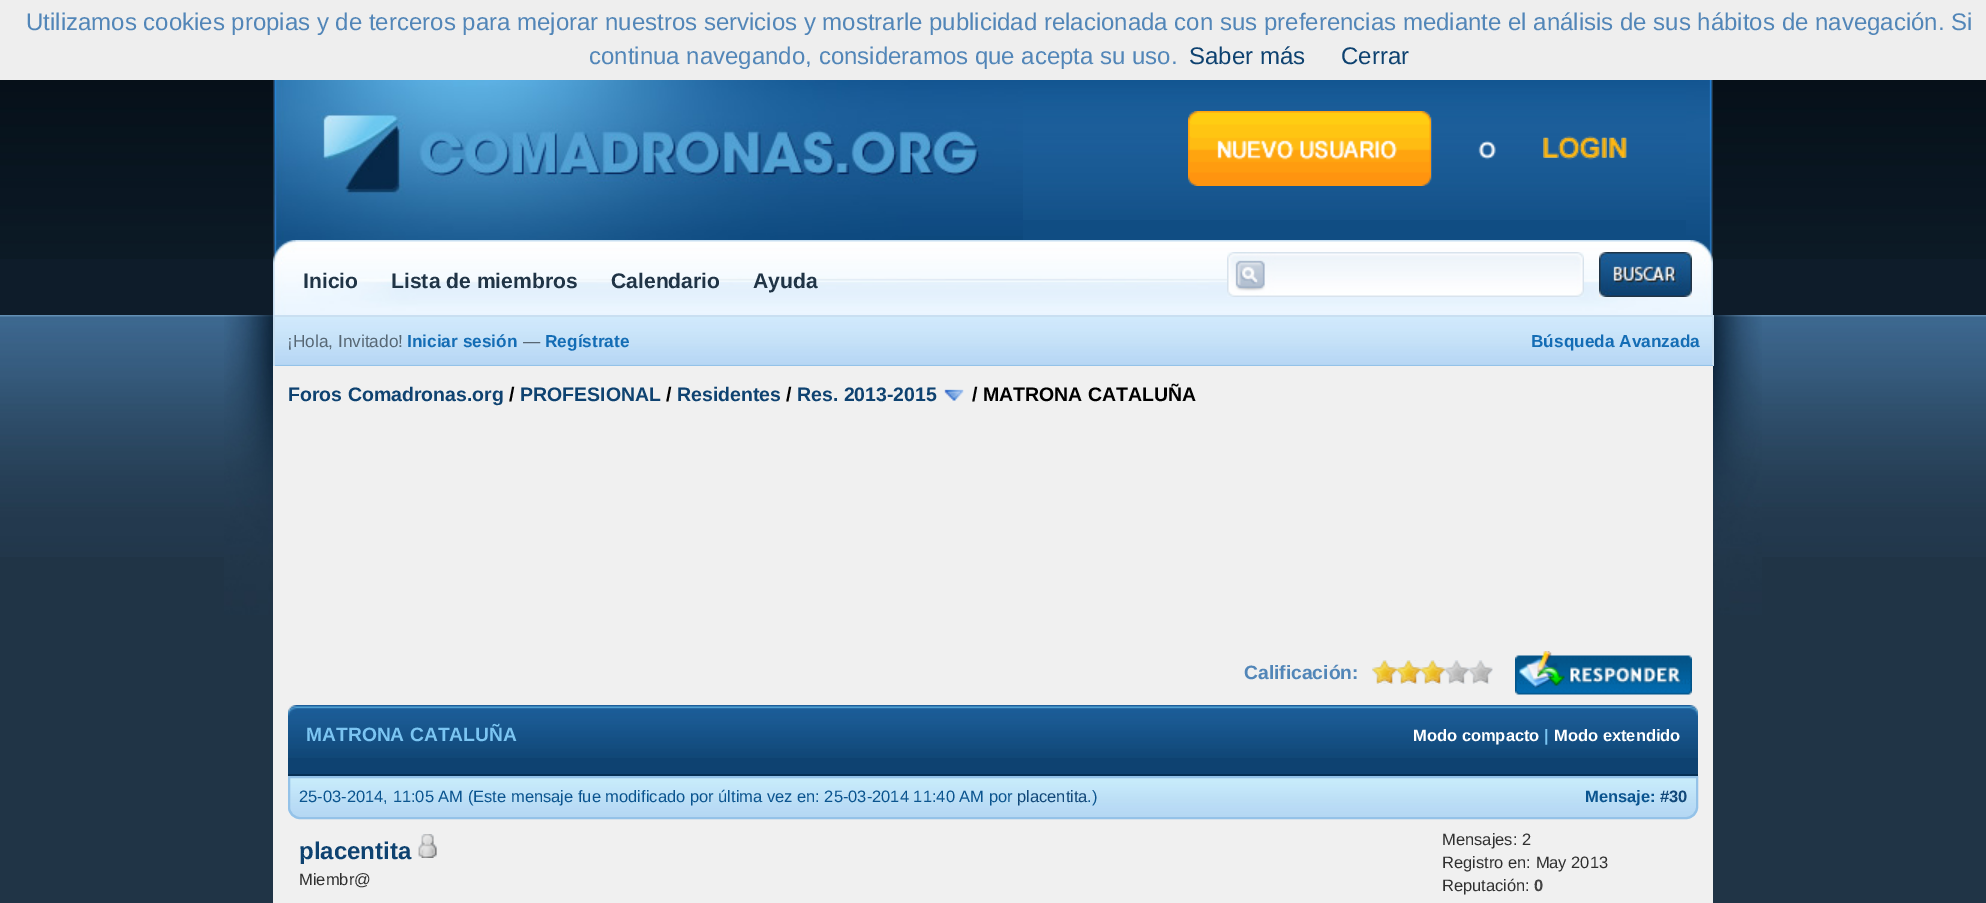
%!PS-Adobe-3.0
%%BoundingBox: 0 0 1986 903
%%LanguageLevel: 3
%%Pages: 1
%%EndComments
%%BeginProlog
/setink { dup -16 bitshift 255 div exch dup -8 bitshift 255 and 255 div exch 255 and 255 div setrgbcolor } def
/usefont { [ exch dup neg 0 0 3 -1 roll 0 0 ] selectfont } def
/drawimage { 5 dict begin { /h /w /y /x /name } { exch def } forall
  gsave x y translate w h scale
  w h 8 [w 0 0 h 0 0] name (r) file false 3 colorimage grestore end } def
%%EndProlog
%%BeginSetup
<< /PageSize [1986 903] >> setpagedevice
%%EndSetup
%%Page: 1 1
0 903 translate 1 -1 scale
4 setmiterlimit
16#0E1C2A setink
0 0 1986 903 rectfill
16#EEEEEE setink
0 0 1986 80 rectfill
/LiberationSans-Regular 24 usefont
16#5286B8 setink
26 30 moveto (Utilizamos cookies propias y de terceros para mejorar nuestros servicios y mostrarle publicidad relacionada con sus preferencias mediante el análisis de sus hábitos de navegación. Si) show
589 64 moveto (continua navegando, consideramos que acepta su uso.) show
16#0E4270 setink
1189 64 moveto (Saber más) show
1341 64 moveto (Cerrar) show
(img1.raw) 0 80 1986 179 drawimage
16#104D83 setink
1023 220 663 20 rectfill
(img2.raw) 1023 80 663 140 drawimage
(img3.raw) 1686 80 27 160 drawimage
(img4.raw) 273 80 750 160 drawimage
(img5.raw) 1188 111 439 75 drawimage
(img6.raw) 1188 111 243 75 drawimage
(img7.raw) 1543 136 84 24 drawimage
(img8.raw) 273 240 1440 75 drawimage
/LiberationSans-Bold 21.1 usefont
16#203446 setink
[
    [(Inicio) 303 288]
    [(Lista de miembros) 391 288]
    [(Calendario) 611 288]
    [(Ayuda) 753 288]
] { aload pop moveto show } forall
(img9.raw) 1227 252 357 45 drawimage
(img10.raw) 1599 252 93 45 drawimage
0 557 1986 346 rectfill
(img11.raw) 0 315 1986 242 drawimage
(img12.raw) 224 315 1538 300 drawimage
16#B3D5F3 setink
275 364 1437 1 rectfill
(img13.raw) 275 317 1437 47 drawimage
[
    [273 315 1440 2 16#C9DFF1]
    [1712 315 2 51 16#C9DFF1]
    [273 365 1440 1 16#94C2E8]
    [273 315 2 51 16#C9DFF1]
] { aload pop setink rectfill } forall
/LiberationSans-Regular 17.25 usefont
16#576774 setink
287 347 moveto (¡Hola, Invitado!) show
/LiberationSans-Bold 17.25 usefont
16#146DB5 setink
407 347 moveto (Iniciar sesión) show
/LiberationSans-Regular 17.25 usefont
16#576774 setink
523 347 moveto (—) show
/LiberationSans-Bold 17.25 usefont
16#146DB5 setink
545 347 moveto (Regístrate) show
1531 347 moveto (Búsqueda Avanzada) show
16#F0F0F0 setink
273 366 1440 537 rectfill
/LiberationSans-Bold 19.5 usefont
16#0E4270 setink
288 401 moveto (Foros Comadronas.org) show
16#000000 setink
509 401 moveto (/) show
16#0E4270 setink
520 401 moveto (PROFESIONAL) show
16#000000 setink
666 401 moveto (/) show
16#0E4270 setink
677 401 moveto (Residentes) show
16#000000 setink
786 401 moveto (/) show
16#0E4270 setink
797 401 moveto (Res. 2013-2015) show
(img14.raw) 944 389 20 12 drawimage
16#000000 setink
972 401 moveto (/ MATRONA CATALUÑA) show
/LiberationSans-Bold 19.25 usefont
16#5286B8 setink
1244 679 moveto (Calificación:) show
(img15.raw) 1372 660 121 24 drawimage
(img16.raw) 1372 660 73 24 drawimage
(img17.raw) 1515 651 177 44 drawimage
16#0E4271 setink
288 758 1410 16 rectfill
(img18.raw) 288 705 1410 53 drawimage
16#063055 setink
288 774 1410 2 rectfill
(img19.raw) 288 705 9 11 drawimage
(img20.raw) 1689 705 9 11 drawimage
16#7BC5F2 setink
306 741 moveto (MATRONA CATALUÑA) show
/LiberationSans-Bold 16.5 usefont
16#FFFFFF setink
1413 741 moveto (Modo compacto) show
16#7BC5F2 setink
1544 741 moveto (|) show
16#FFFFFF setink
1554 741 moveto (Modo extendido) show
(img21.raw) 288 778 1410 41 drawimage
16#94C2E8 setink
2 setlinewidth
289 777 moveto 1697 777 lineto 1697 807 lineto 1697 813 1692 818 1686 818 curveto 300 818 lineto 294 818 289 813 289 807 curveto closepath stroke
/LiberationSans-Regular 16.5 usefont
16#0A548F setink
299 802 moveto (25-03-2014, 11:05 AM \(Este mensaje fue modificado por última vez en: 25-03-2014 11:40 AM por) show
16#114879 setink
1017 802 moveto (placentita) show
16#0A548F setink
1087 802 moveto (.\)) show
/LiberationSans-Bold 16.5 usefont
1585 802 moveto (Mensaje:) show
16#114879 setink
1660 802 moveto (#30) show
/LiberationSans-Bold 24 usefont
16#0E4270 setink
299 859 moveto (placentita) show
(img22.raw) 418 834 19 24 drawimage
/LiberationSans-Regular 16.5 usefont
16#303030 setink
[
    [(Miembr@) 299 885]
    [(Mensajes: 2) 1442 845]
    [(Registro en: May 2013) 1442 868]
    [(Reputación:) 1442 891]
] { aload pop moveto show } forall
/LiberationSans-Bold 16.5 usefont
16#444444 setink
1534 891 moveto (0) show
showpage
%%EOF
